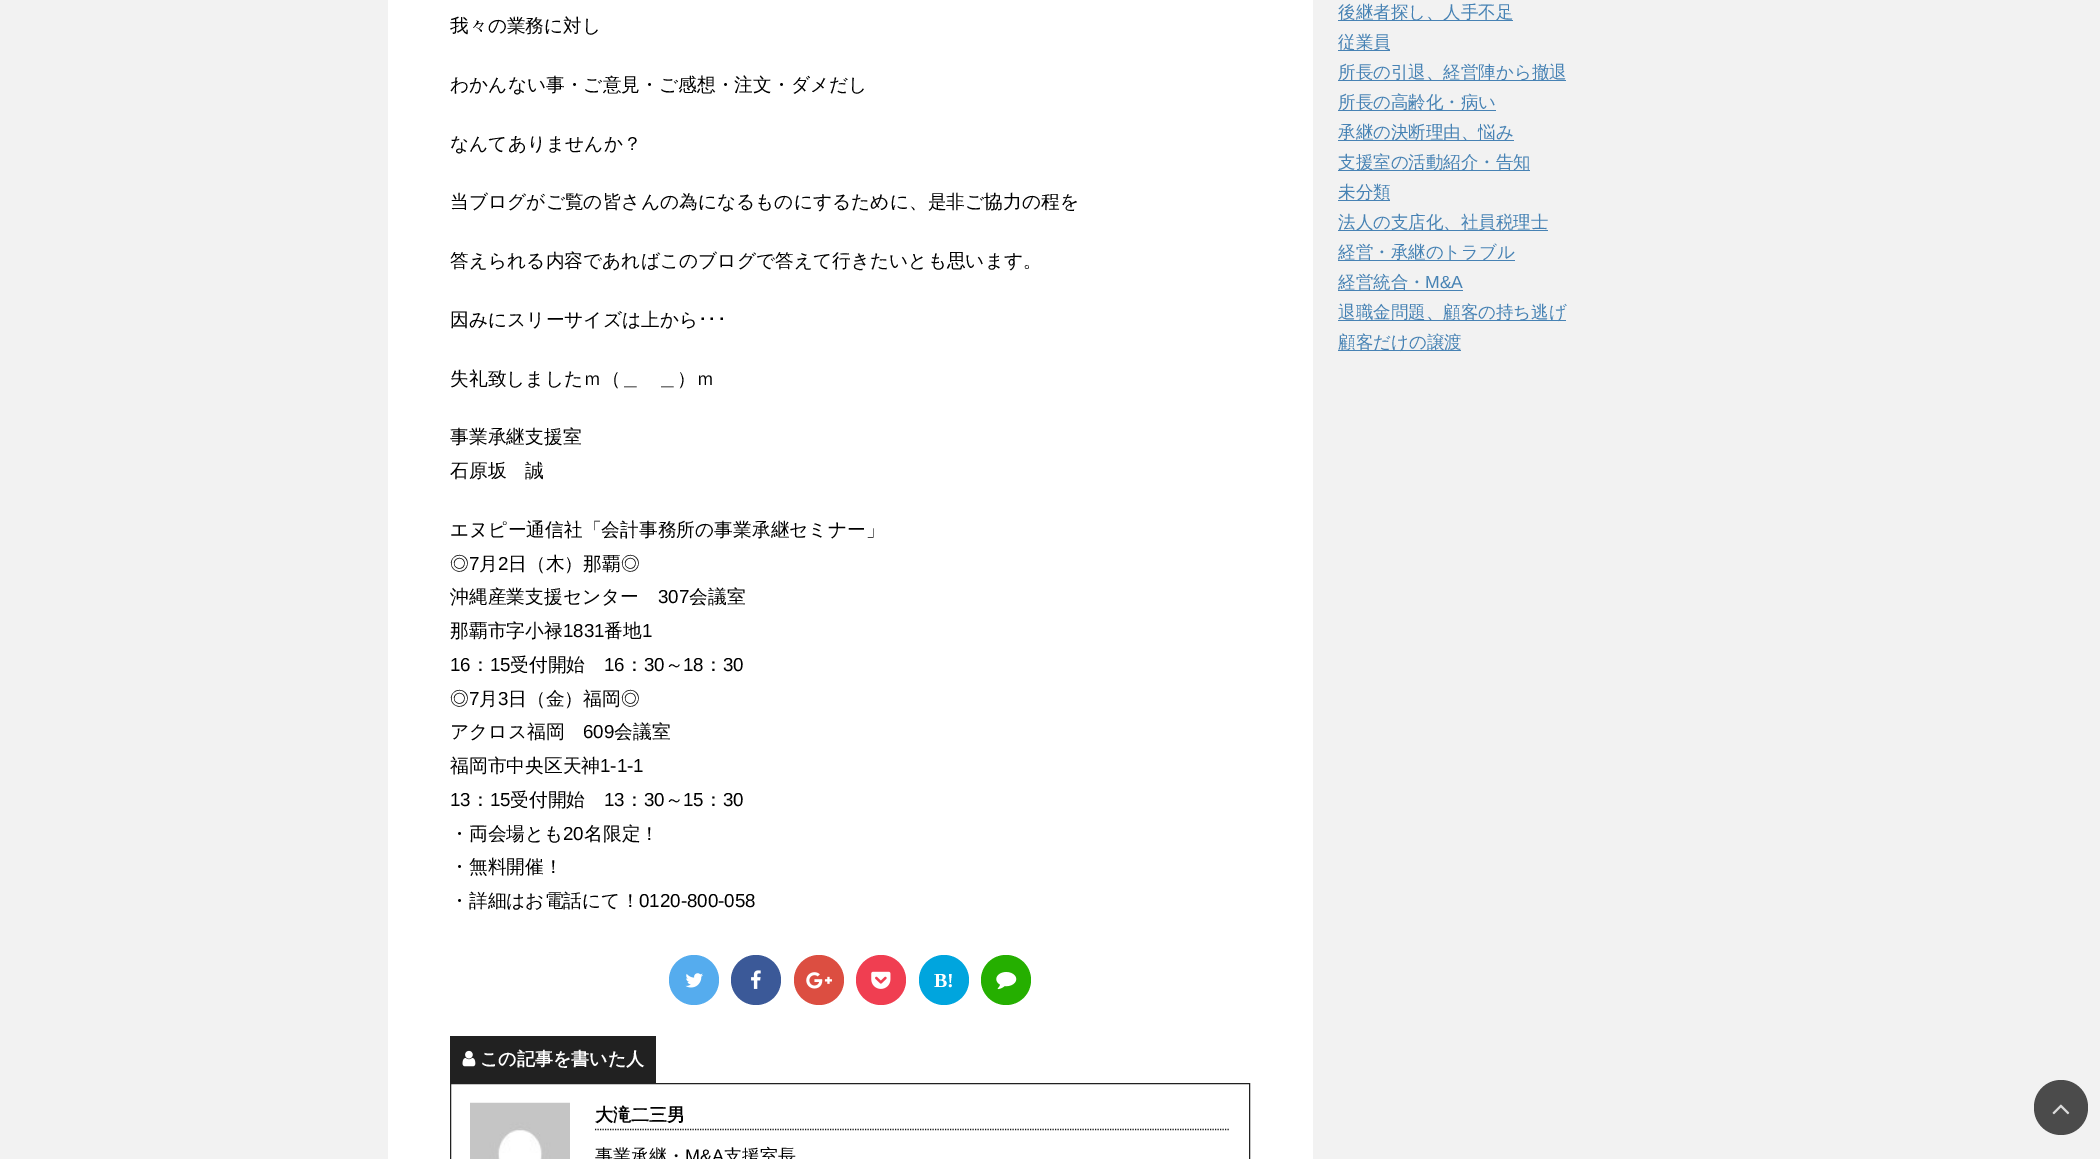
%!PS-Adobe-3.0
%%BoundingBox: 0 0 2100 1159
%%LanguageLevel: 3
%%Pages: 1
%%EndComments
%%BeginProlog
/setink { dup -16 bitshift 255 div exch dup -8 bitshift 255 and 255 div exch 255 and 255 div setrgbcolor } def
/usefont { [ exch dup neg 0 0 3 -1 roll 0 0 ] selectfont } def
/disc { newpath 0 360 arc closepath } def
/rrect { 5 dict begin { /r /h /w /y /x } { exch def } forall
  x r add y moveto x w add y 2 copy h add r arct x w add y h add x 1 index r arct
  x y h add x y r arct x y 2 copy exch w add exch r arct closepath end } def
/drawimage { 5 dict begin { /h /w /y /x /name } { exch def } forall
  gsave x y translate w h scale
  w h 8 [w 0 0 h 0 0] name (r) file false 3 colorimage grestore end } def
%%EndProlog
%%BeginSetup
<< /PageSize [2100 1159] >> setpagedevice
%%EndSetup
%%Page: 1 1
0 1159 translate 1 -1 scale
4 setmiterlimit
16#F2F2F2 setink
0 0 2100 1159 rectfill
16#FFFFFF setink
388 0 925 1159 rectfill
/WenQuanYiZenHei-Medium 18.75 usefont
16#000000 setink
[
    [(我々の業務に対し) 450 32]
    [(わかんない事・ご意見・ご感想・注文・ダメだし) 450 91]
    [(なんてありませんか？) 450 150]
    [(当ブログがご覧の皆さんの為になるものにするために、是非ご協力の程を) 450 208]
    [(答えられる内容であればこのブログで答えて行きたいとも思います。) 450 267]
    [(因みにスリーサイズは上から) 450 326]
] { aload pop moveto show } forall
/IPAPGothic-Regular 18.75 usefont
698 326 moveto (･･･) show
/WenQuanYiZenHei-Medium 18.75 usefont
[
    [(失礼致しましたｍ（＿　＿）ｍ) 450 385]
    [(事業承継支援室) 450 443]
    [(石原坂　誠) 450 477]
    [(エヌピー通信社「会計事務所の事業承継セミナー」) 450 536]
    [(◎) 450 570]
] { aload pop moveto show } forall
/LiberationSans-Regular 18.75 usefont
469 570 moveto (7) show
/WenQuanYiZenHei-Medium 18.75 usefont
479 570 moveto (月) show
/LiberationSans-Regular 18.75 usefont
498 570 moveto (2) show
/WenQuanYiZenHei-Medium 18.75 usefont
508 570 moveto (日（木）那覇◎) show
450 603 moveto (沖縄産業支援センター) show
/LiberationSans-Regular 18.75 usefont
658 603 moveto (307) show
/WenQuanYiZenHei-Medium 18.75 usefont
689 603 moveto (会議室) show
450 637 moveto (那覇市字小禄) show
/LiberationSans-Regular 18.75 usefont
563 637 moveto (1831) show
/WenQuanYiZenHei-Medium 18.75 usefont
604 637 moveto (番地) show
/LiberationSans-Regular 18.75 usefont
642 637 moveto (1) show
450 671 moveto (16) show
/WenQuanYiZenHei-Medium 18.75 usefont
471 671 moveto (：) show
/LiberationSans-Regular 18.75 usefont
490 671 moveto (15) show
/WenQuanYiZenHei-Medium 18.75 usefont
510 671 moveto (受付開始) show
/LiberationSans-Regular 18.75 usefont
604 671 moveto (16) show
/WenQuanYiZenHei-Medium 18.75 usefont
625 671 moveto (：) show
/LiberationSans-Regular 18.75 usefont
644 671 moveto (30) show
/WenQuanYiZenHei-Medium 18.75 usefont
665 671 moveto (～) show
/LiberationSans-Regular 18.75 usefont
683 671 moveto (18) show
/WenQuanYiZenHei-Medium 18.75 usefont
704 671 moveto (：) show
/LiberationSans-Regular 18.75 usefont
723 671 moveto (30) show
/WenQuanYiZenHei-Medium 18.75 usefont
450 705 moveto (◎) show
/LiberationSans-Regular 18.75 usefont
469 705 moveto (7) show
/WenQuanYiZenHei-Medium 18.75 usefont
479 705 moveto (月) show
/LiberationSans-Regular 18.75 usefont
498 705 moveto (3) show
/WenQuanYiZenHei-Medium 18.75 usefont
508 705 moveto (日（金）福岡◎) show
450 738 moveto (アクロス福岡) show
/LiberationSans-Regular 18.75 usefont
583 738 moveto (609) show
/WenQuanYiZenHei-Medium 18.75 usefont
614 738 moveto (会議室) show
450 772 moveto (福岡市中央区天神) show
/LiberationSans-Regular 18.75 usefont
600 772 moveto (1-1-1) show
450 806 moveto (13) show
/WenQuanYiZenHei-Medium 18.75 usefont
471 806 moveto (：) show
/LiberationSans-Regular 18.75 usefont
490 806 moveto (15) show
/WenQuanYiZenHei-Medium 18.75 usefont
510 806 moveto (受付開始) show
/LiberationSans-Regular 18.75 usefont
604 806 moveto (13) show
/WenQuanYiZenHei-Medium 18.75 usefont
625 806 moveto (：) show
/LiberationSans-Regular 18.75 usefont
644 806 moveto (30) show
/WenQuanYiZenHei-Medium 18.75 usefont
665 806 moveto (～) show
/LiberationSans-Regular 18.75 usefont
683 806 moveto (15) show
/WenQuanYiZenHei-Medium 18.75 usefont
704 806 moveto (：) show
/LiberationSans-Regular 18.75 usefont
723 806 moveto (30) show
/WenQuanYiZenHei-Medium 18.75 usefont
450 840 moveto (・両会場とも) show
/LiberationSans-Regular 18.75 usefont
563 840 moveto (20) show
/WenQuanYiZenHei-Medium 18.75 usefont
[
    [(名限定！) 584 840]
    [(・無料開催！) 450 873]
    [(・詳細はお電話にて！) 450 907]
] { aload pop moveto show } forall
/LiberationSans-Regular 18.75 usefont
639 907 moveto (0120-800-058) show
16#55ACEE setink
694 980 25 disc fill
(img1.raw) 685 973 18 15 drawimage
16#3B5998 setink
756 980 25 disc fill
(img2.raw) 751 970 10 19 drawimage
16#DC4E41 setink
819 980 25 disc fill
(img3.raw) 806 972 26 17 drawimage
16#F03E51 setink
881 980 25 disc fill
(img4.raw) 871 971 20 18 drawimage
16#00A5DE setink
944 980 25 disc fill
/LiberationSerif-Bold 20 usefont
16#FFFFFF setink
934 987 moveto (B!) show
16#25AF00 setink
1006 980 25 disc fill
(img5.raw) 996 972 21 18 drawimage
16#212121 setink
450 1036 206 47 rectfill
(img6.raw) 462 1050 14 17 drawimage
/WenQuanYiZenHei-Bold 18 usefont
16#FFFFFF setink
480 1065 moveto (この記事を書いた人) show
16#212121 setink
450.5 1083.5 799 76 rectstroke
(img7.raw) 470 1102 100 57 drawimage
16#1A1A1A setink
1.2 setlinewidth
[1.25 1.25] 0 setdash
595 1129.5 moveto 1230 1129.5 lineto stroke
16#000000 setink
595 1121 moveto (大滝二三男) show
/WenQuanYiZenHei-Medium 18 usefont
595 1162 moveto (事業承継・) show
/LiberationSans-Regular 18 usefont
685 1162 moveto (M&A) show
/WenQuanYiZenHei-Medium 18 usefont
724 1162 moveto (支援室長) show
16#4682B4 setink
1338 20 175 1 rectfill
/WenQuanYiZenHei-Medium 17.5 usefont
1338 18 moveto (後継者探し、人手不足) show
1338 50 52 1 rectfill
1338 48 moveto (従業員) show
1338 80 228 1 rectfill
1338 78 moveto (所長の引退、経営陣から撤退) show
1338 110 158 1 rectfill
1338 108 moveto (所長の高齢化・病い) show
1338 140 176 1 rectfill
1338 138 moveto (承継の決断理由、悩み) show
1338 170 192 1 rectfill
1338 168 moveto (支援室の活動紹介・告知) show
1338 200 52 1 rectfill
1338 198 moveto (未分類) show
1338 230 210 1 rectfill
1338 228 moveto (法人の支店化、社員税理士) show
1338 260 177 1 rectfill
1338 258 moveto (経営・承継のトラブル) show
1338 290 125 1 rectfill
1338 288 moveto (経営統合・) show
/LiberationSans-Regular 17.5 usefont
1425 288 moveto (M&A) show
1338 320 228 1 rectfill
/WenQuanYiZenHei-Medium 17.5 usefont
1338 318 moveto (退職金問題、顧客の持ち逃げ) show
1338 350 123 1 rectfill
1338 348 moveto (顧客だけの譲渡) show
16#4B4B4B setink
2034 1080 54 55 27 rrect fill
(img8.raw) 2052 1104 18 11 drawimage
showpage
%%EOF
